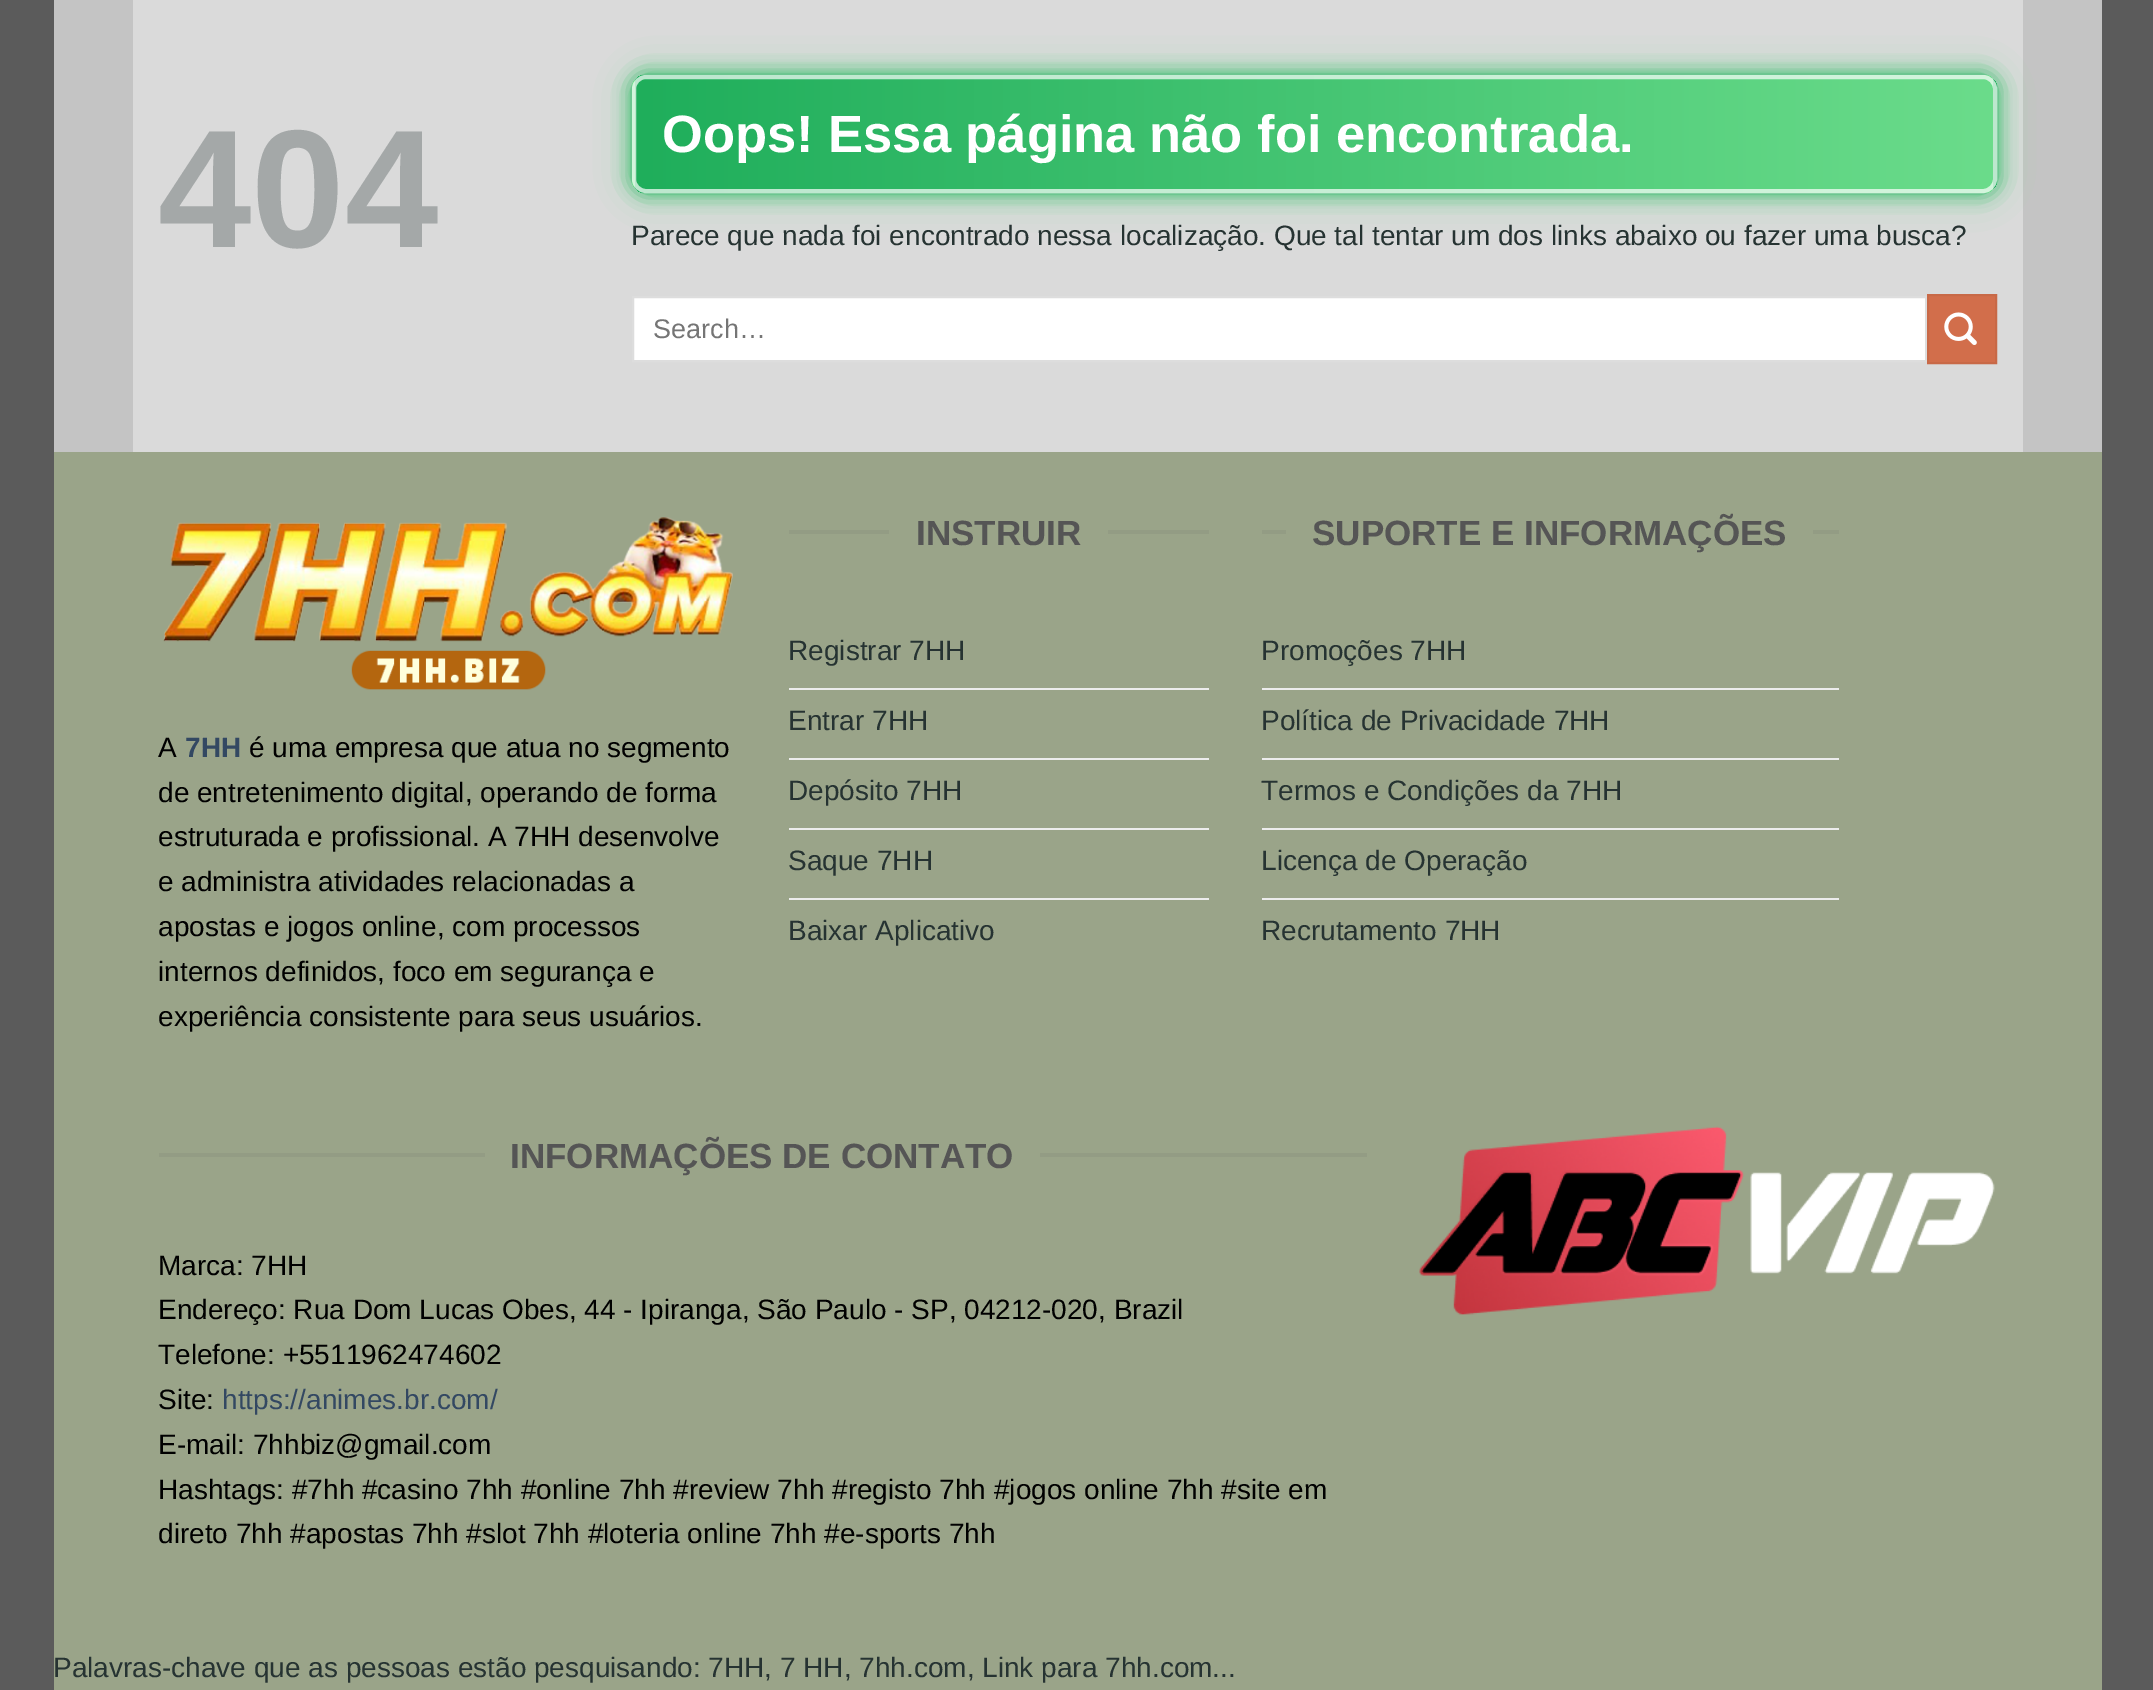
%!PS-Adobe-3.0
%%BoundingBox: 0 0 2153 1690
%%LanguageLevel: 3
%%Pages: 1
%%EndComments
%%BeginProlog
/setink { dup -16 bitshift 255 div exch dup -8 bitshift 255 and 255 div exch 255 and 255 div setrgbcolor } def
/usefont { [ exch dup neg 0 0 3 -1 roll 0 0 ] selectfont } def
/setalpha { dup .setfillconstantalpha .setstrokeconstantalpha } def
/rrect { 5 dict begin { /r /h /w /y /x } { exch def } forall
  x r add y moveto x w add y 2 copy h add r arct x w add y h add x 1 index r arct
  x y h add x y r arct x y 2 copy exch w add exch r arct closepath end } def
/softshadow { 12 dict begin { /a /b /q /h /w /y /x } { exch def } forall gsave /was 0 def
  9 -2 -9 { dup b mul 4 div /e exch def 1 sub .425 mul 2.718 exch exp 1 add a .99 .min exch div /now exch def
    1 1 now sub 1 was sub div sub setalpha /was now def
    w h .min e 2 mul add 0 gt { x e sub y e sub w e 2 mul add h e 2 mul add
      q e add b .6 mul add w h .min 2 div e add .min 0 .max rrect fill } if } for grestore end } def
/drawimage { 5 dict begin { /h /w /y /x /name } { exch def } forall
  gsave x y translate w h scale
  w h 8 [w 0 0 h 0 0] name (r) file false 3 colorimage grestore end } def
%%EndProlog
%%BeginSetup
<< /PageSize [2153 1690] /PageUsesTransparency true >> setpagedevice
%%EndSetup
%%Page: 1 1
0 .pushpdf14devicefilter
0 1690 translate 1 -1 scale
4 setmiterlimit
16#5B5B5B setink
0 0 2153 1690 rectfill
16#C4C4C4 setink
54 0 2048 452 rectfill
16#DADADA setink
133 0 1890 452 rectfill
/LiberationSans-Bold 168 usefont
16#A4A8A8 setink
158 247 moveto (404) show
16#6BDC8B setink
632 75 1365 118 14 17.5 0.8 softshadow
16#1FAE5B setink
632 75 1365 118 14 9 0.9 softshadow
gsave
632 75 1365 118 14 rrect clip newpath
gsave 632 75 moveto 635 75 lineto 635 193 lineto 632 193 lineto closepath clip newpath
<< /ShadingType 2 /ColorSpace /DeviceRGB /Coords [-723 134 635 134] /Extend [true true] /Function << /FunctionType 2 /Domain [0 1] /C0 [0.122 0.682 0.357] /C1 [0.42 0.863 0.545] /N 1 >> >> shfill grestore
gsave 635 75 moveto 1993 75 lineto 1993 193 lineto 635 193 lineto closepath clip newpath
<< /ShadingType 2 /ColorSpace /DeviceRGB /Coords [635 134 1993 134] /Extend [true true] /Function << /FunctionType 2 /Domain [0 1] /C0 [0.122 0.682 0.357] /C1 [0.42 0.863 0.545] /N 1 >> >> shfill grestore
gsave 1993 75 moveto 1997 75 lineto 1997 193 lineto 1993 193 lineto closepath clip newpath
<< /ShadingType 2 /ColorSpace /DeviceRGB /Coords [1993 134 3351 134] /Extend [true true] /Function << /FunctionType 2 /Domain [0 1] /C0 [0.122 0.682 0.357] /C1 [0.42 0.863 0.545] /N 1 >> >> shfill grestore
grestore
0.7 setalpha
16#FFFFFF setink
4 setlinewidth
634 77 1361 114 12 rrect stroke
/LiberationSans-Bold 52.5 usefont
1 setalpha
662 152 moveto (Oops! Essa página não foi encontrada.) show
/LiberationSans-Regular 28 usefont
16#263332 setink
631 245 moveto (Parece que nada foi encontrado nessa localização. Que tal tentar um dos links abaixo ou fazer uma busca?) show
16#FFFFFF setink
633 297 moveto 1926 297 lineto 1926 361 lineto 633 361 lineto closepath gsave fill grestore
16#DDDDDD setink
2 setlinewidth
stroke
/LiberationSans-Regular 27 usefont
16#757575 setink
653 338 moveto (Search…) show
16#D26E4B setink
1928 295 moveto 1996 295 lineto 1996 363 lineto 1928 363 lineto closepath gsave fill grestore
16#C86947 setink
stroke
(img1.raw) 1944 312 33 33 drawimage
16#9AA489 setink
54 452 2048 1238 rectfill
(img2.raw) 163 517 570 173 drawimage
/LiberationSans-Regular 28 usefont
16#000000 setink
158 757 moveto (A) show
/LiberationSans-Bold 28 usefont
16#334862 setink
185 757 moveto (7HH) show
/LiberationSans-Regular 28 usefont
16#000000 setink
[
    [(é uma empresa que atua no segmento) 249 757]
    [(de entretenimento digital, operando de forma) 158 802]
    [(estruturada e profissional. A 7HH desenvolve) 158 846]
    [(e administra atividades relacionadas a) 158 891]
    [(apostas e jogos online, com processos) 158 936]
    [(internos definidos, foco em segurança e) 158 981]
    [(experiência consistente para seus usuários.) 158 1026]
] { aload pop moveto show } forall
16#939C84 setink
789 530 100 4 rectfill
/LiberationSans-Bold 35 usefont
16#555555 setink
916 545 moveto (INSTRUIR) show
16#939C84 setink
1108 530 101 4 rectfill
16#ECECEC setink
789 688 420 2 rectfill
/LiberationSans-Regular 28 usefont
16#263332 setink
788 660 moveto (Registrar 7HH) show
16#ECECEC setink
789 758 420 2 rectfill
16#263332 setink
788 730 moveto (Entrar 7HH) show
16#ECECEC setink
789 828 420 2 rectfill
16#263332 setink
788 800 moveto (Depósito 7HH) show
16#ECECEC setink
789 898 420 2 rectfill
16#263332 setink
788 870 moveto (Saque 7HH) show
788 940 moveto (Baixar Aplicativo) show
16#939C84 setink
1262 530 24 4 rectfill
/LiberationSans-Bold 35 usefont
16#555555 setink
1312 545 moveto (SUPORTE E INFORMAÇÕES) show
16#939C84 setink
1813 530 26 4 rectfill
16#ECECEC setink
1262 688 577 2 rectfill
/LiberationSans-Regular 28 usefont
16#263332 setink
1261 660 moveto (Promoções 7HH) show
16#ECECEC setink
1262 758 577 2 rectfill
16#263332 setink
1261 730 moveto (Política de Privacidade 7HH) show
16#ECECEC setink
1262 828 577 2 rectfill
16#263332 setink
1261 800 moveto (Termos e Condições da 7HH) show
16#ECECEC setink
1262 898 577 2 rectfill
16#263332 setink
1261 870 moveto (Licença de Operação) show
1261 940 moveto (Recrutamento 7HH) show
16#939C84 setink
159 1153 326 4 rectfill
/LiberationSans-Bold 35 usefont
16#555555 setink
510 1168 moveto (INFORMAÇÕES DE CONTATO) show
16#939C84 setink
1040 1153 327 4 rectfill
/LiberationSans-Regular 28 usefont
16#000000 setink
[
    [(Marca: 7HH) 158 1275]
    [(Endereço: Rua Dom Lucas Obes, 44 - Ipiranga, São Paulo - SP, 04212-020, Brazil) 158 1319]
    [(Telefone: +5511962474602) 158 1364]
    [(Site:) 158 1409]
] { aload pop moveto show } forall
16#334862 setink
222 1409 moveto (https://animes.br.com/) show
16#000000 setink
[
    [(E-mail: 7hhbiz@gmail.com) 158 1454]
    [(Hashtags: #7hh #casino 7hh #online 7hh #review 7hh #registo 7hh #jogos online 7hh #site em) 158 1499]
    [(direto 7hh #apostas 7hh #slot 7hh #loteria online 7hh #e-sports 7hh) 158 1543]
] { aload pop moveto show } forall
(img3.raw) 1419 1126 576 189 drawimage
16#263332 setink
53 1677 moveto (Palavras-chave que as pessoas estão pesquisando: 7HH, 7 HH, 7hh.com, Link para 7hh.com...) show
.poppdf14devicefilter showpage
%%EOF
